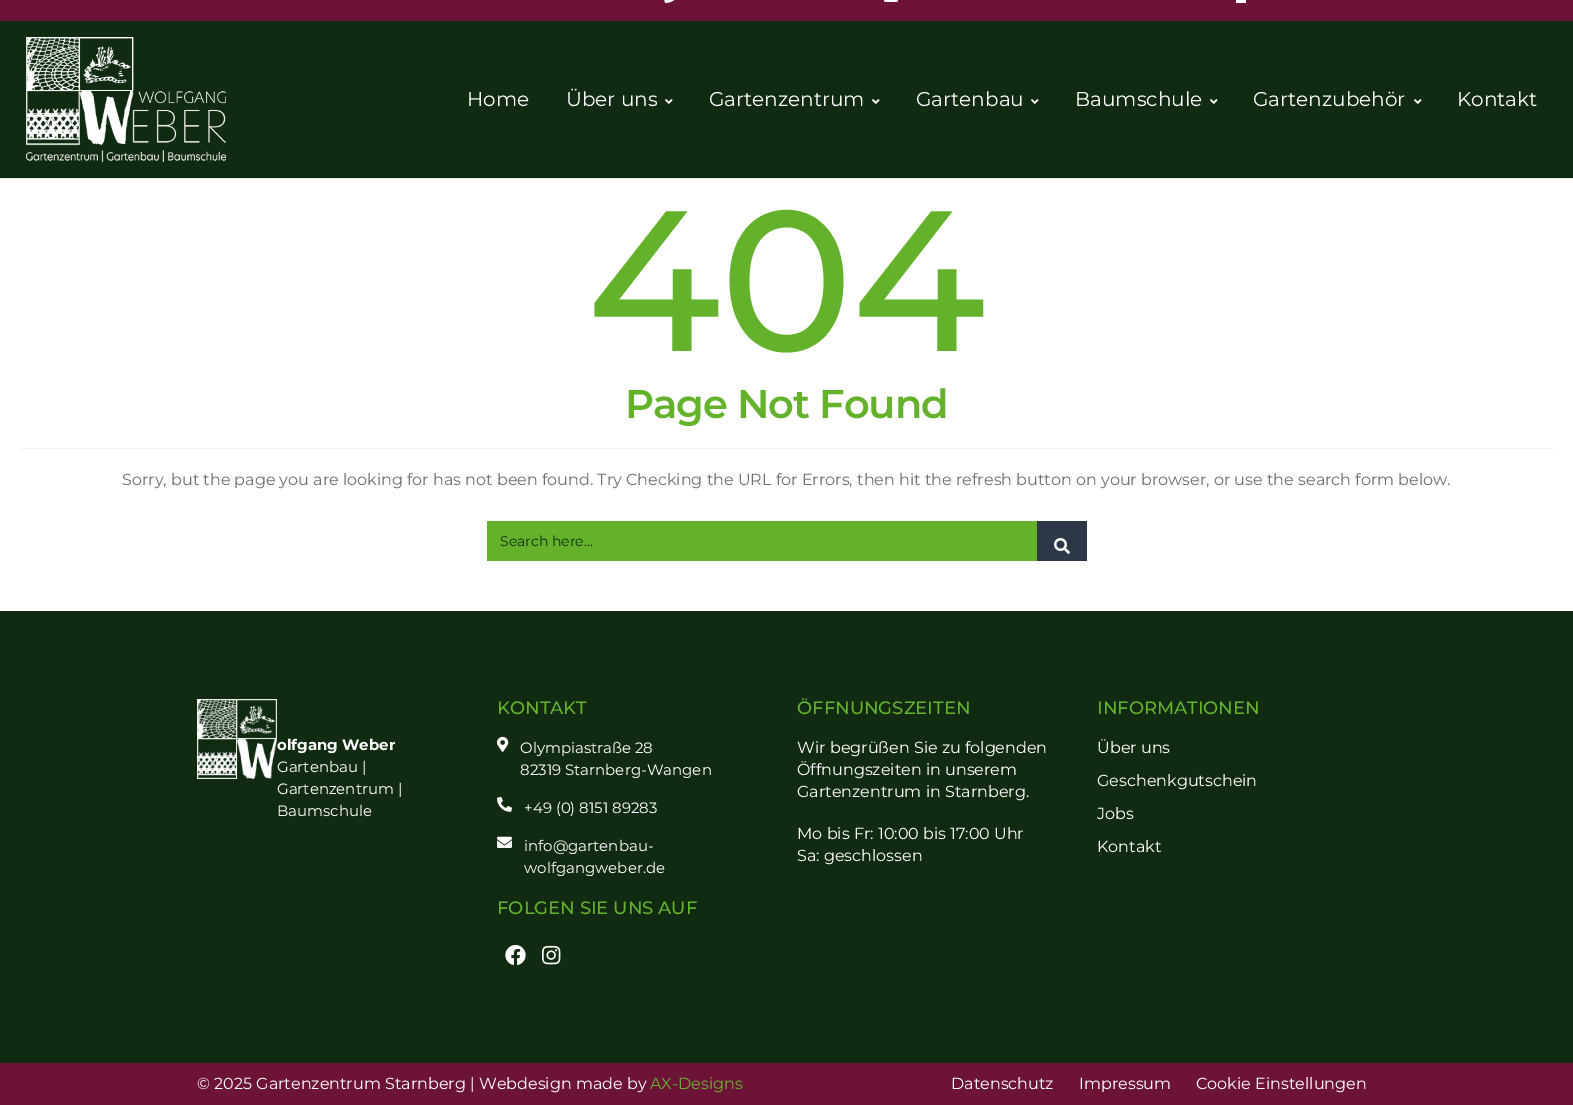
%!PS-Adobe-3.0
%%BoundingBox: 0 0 1573 1105
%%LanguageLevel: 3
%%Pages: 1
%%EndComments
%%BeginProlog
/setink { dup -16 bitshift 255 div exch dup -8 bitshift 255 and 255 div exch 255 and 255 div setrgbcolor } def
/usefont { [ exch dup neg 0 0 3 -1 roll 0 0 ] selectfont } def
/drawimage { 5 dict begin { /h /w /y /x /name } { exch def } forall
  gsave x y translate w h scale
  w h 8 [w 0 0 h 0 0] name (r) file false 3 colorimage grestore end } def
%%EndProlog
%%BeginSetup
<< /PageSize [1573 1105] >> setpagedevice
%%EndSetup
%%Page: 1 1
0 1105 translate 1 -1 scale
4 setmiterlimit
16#FFFFFF setink
0 0 1573 1105 rectfill
16#6D1338 setink
0 0 1573 21 rectfill
(img1.raw) 664 0 11 3 drawimage
(img2.raw) 884 0 14 2 drawimage
[
    [1236 0 10 3 16#FFFFFF]
    [0 21 1573 157 16#112B13]
    [0 178 1573 1 16#E9E9EB]
] { aload pop setink rectfill } forall
(img3.raw) 26 37 200 125 drawimage
/Montserrat-Regular 20 usefont
16#FFFFFF setink
467 106 moveto (Home) show
566 106 moveto (Über uns) show
(img4.raw) 665 99 8 5 drawimage
709 106 moveto (Gartenzentrum) show
(img4.raw) 872 99 8 5 drawimage
916 106 moveto (Gartenbau) show
(img4.raw) 1031 99 8 5 drawimage
1075 106 moveto (Baumschule) show
(img4.raw) 1210 99 8 5 drawimage
1253 106 moveto (Gartenzubehör) show
(img4.raw) 1414 99 8 5 drawimage
1457 106 moveto (Kontakt) show
16#F2F2F2 setink
20 448 1533 1 rectfill
/Montserrat-Medium 200 usefont
16#64B22B setink
587 351 moveto -1 0 (404) ashow
/Montserrat-SemiBold 40 usefont
625 418 moveto -1 0 (Page Not Found) ashow
/Montserrat-Regular 16 usefont
16#707070 setink
122 485 moveto (Sorry, but the page you are looking for has not been found. Try Checking the URL for Errors, then hit the refresh button on your browser, or use the search form below.) show
16#64B22B setink
487 521 550 40 rectfill
/Montserrat-Regular 14 usefont
16#112B13 setink
500 546 moveto (Search here...) show
16#2D3748 setink
1037 521 50 40 rectfill
(img5.raw) 1054 538 16 16 drawimage
16#112B13 setink
0 611 1573 452 rectfill
(img6.raw) 197 699 80 80 drawimage
/Montserrat-Bold 15 usefont
16#FFFFFF setink
277 750 moveto (olfgang Weber) show
/Montserrat-Regular 15 usefont
[
    [(Gartenbau |) 277 772]
    [(Gartenzentrum |) 277 794]
    [(Baumschule) 277 816]
] { aload pop moveto show } forall
/Montserrat-Medium 18 usefont
16#64B22B setink
497 714 moveto (KONTAKT) show
(img7.raw) 497 736 12 16 drawimage
/Montserrat-Regular 15 usefont
16#FFFFFF setink
520 753 moveto (Olympiastraße 28) show
520 775 moveto (82319 Starnberg-Wangen) show
(img8.raw) 497 796 15 16 drawimage
524 813 moveto (+49 \(0\) 8151 89283) show
(img9.raw) 497 836 15 12 drawimage
524 851 moveto (info@gartenbau-) show
524 873 moveto (wolfgangweber.de) show
/Montserrat-Medium 18 usefont
16#64B22B setink
497 914 moveto (FOLGEN SIE UNS AUF) show
(img10.raw) 505 944 21 22 drawimage
(img11.raw) 542 945 19 20 drawimage
797 714 moveto (ÖFFNUNGSZEITEN) show
/Montserrat-Regular 16 usefont
16#FFFFFF setink
[
    [(Wir begrüßen Sie zu folgenden) 797 753]
    [(Öffnungszeiten in unserem) 797 775]
    [(Gartenzentrum in Starnberg.) 797 797]
    [(Mo bis Fr: 10:00 bis 17:00 Uhr) 797 839]
    [(Sa: geschlossen) 797 861]
] { aload pop moveto show } forall
/Montserrat-Medium 18 usefont
16#64B22B setink
1097 714 moveto (INFORMATIONEN) show
/Montserrat-Regular 16 usefont
16#FFFFFF setink
[
    [(Über uns) 1097 753]
    [(Geschenkgutschein) 1097 786]
    [(Jobs) 1097 819]
    [(Kontakt) 1097 852]
] { aload pop moveto show } forall
16#6D1338 setink
0 1063 1573 42 rectfill
16#FFFFFF setink
197 1089 moveto (© 2025 Gartenzentrum Starnberg | Webdesign made by) show
16#64B22B setink
650 1089 moveto (AX-Designs) show
16#FFFFFF setink
[
    [(Datenschutz) 951 1089]
    [(Impressum) 1079 1089]
    [(Cookie Einstellungen) 1196 1089]
] { aload pop moveto show } forall
showpage
%%EOF
